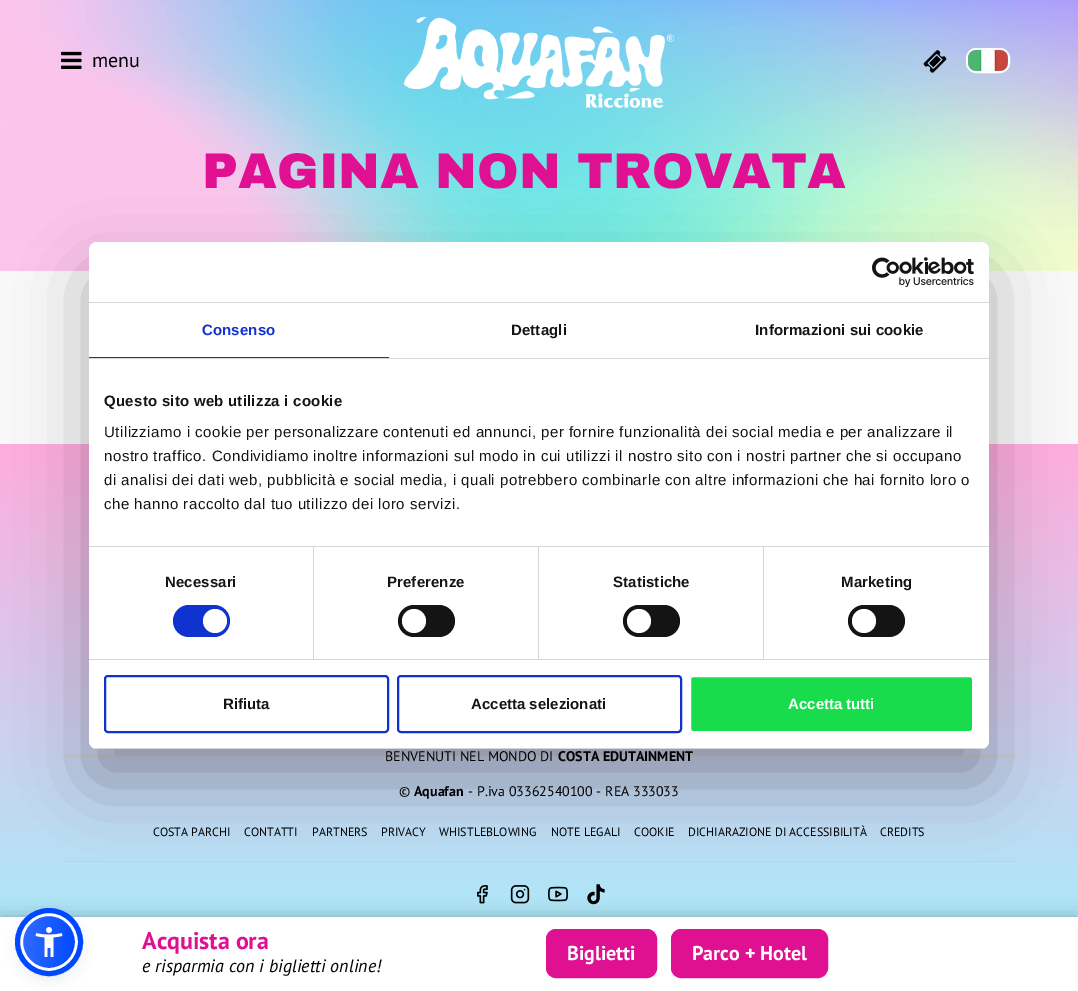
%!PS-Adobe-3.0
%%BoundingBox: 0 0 1078 991
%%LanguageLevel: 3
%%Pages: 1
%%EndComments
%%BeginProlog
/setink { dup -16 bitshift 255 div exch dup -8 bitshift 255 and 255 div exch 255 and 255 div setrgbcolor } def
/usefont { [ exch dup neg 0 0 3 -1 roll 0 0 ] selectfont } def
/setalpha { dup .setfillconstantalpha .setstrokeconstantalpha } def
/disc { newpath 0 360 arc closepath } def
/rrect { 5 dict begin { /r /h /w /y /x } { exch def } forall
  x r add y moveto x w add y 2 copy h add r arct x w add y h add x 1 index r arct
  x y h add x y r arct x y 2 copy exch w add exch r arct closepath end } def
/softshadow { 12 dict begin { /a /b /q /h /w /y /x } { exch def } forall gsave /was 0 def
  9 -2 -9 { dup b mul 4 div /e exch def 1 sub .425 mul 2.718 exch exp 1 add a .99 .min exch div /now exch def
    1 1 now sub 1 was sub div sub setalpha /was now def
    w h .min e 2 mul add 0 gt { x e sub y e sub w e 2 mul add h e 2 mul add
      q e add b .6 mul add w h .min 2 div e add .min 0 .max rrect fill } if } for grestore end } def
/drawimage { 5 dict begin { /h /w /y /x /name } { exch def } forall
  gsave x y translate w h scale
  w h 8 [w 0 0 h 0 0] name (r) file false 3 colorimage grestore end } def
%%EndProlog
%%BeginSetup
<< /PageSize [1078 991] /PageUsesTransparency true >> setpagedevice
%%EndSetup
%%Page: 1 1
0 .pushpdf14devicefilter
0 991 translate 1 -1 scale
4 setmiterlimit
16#F8F8F8 setink
0 0 1078 991 rectfill
(img5.raw) 0 0 1078 271 drawimage
(img1.raw) 61 51 21 18 drawimage
/PTSans-Regular 20 usefont
16#000000 setink
92 67 moveto (menu) show
(img2.raw) 404 17 270 91 drawimage
(img3.raw) 923 50 24 23 drawimage
16#FFFFFF setink
2 setlinewidth
967 49 42 23 9 rrect stroke
(img4.raw) 968 50 40 21 drawimage
/ArchivoBlack-Black 50 usefont
16#E01093 setink
202 188 moveto (PAGINA NON TROVATA) show
gsave 0 444 moveto 1078 444 lineto 1078 917 lineto 0 917 lineto closepath clip newpath
<< /ShadingType 2 /ColorSpace /DeviceRGB /Coords [539 444 539 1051] /Extend [true true] /Function << /FunctionType 2 /Domain [0 1] /C0 [1 0.675 0.875] /C1 [0.588 0.973 1] /N 1 >> >> shfill grestore
16#CDCDCD setink
61 756 956 1 rectfill
61 861 956 1 rectfill
16#000000 setink
89 274 900 507 8 34 0.3 softshadow
16#FFFFFF setink
89 242 900 507 8 rrect fill
16#D6D6D6 setink
89 302 900 1 rectfill
(img6.raw) 872 257 102 30 drawimage
89 358 900 1 rectfill
16#1032CF setink
89 357 300 1 rectfill
/LiberationSans-Bold 15 usefont
202 335 moveto 0.1 0 (Consenso) ashow
16#141414 setink
511 335 moveto 0.1 0 (Dettagli) ashow
755 335 moveto 0.1 0 (Informazioni sui cookie) ashow
16#D6D6D6 setink
89 546 900 1 rectfill
16#141414 setink
104 406 moveto 0.25 0 (Questo sito web utilizza i cookie) ashow
/LiberationSans-Regular 15 usefont
104 437 moveto 0.5 0 (Utilizziamo i cookie per personalizzare contenuti ed annunci, per fornire funzionalità dei social media e per analizzare il) ashow
104 461 moveto 0.5 0 (nostro traffico. Condividiamo inoltre informazioni sul modo in cui utilizzi il nostro sito con i nostri partner che si occupano) ashow
104 485 moveto 0.5 0 (di analisi dei dati web, pubblicità e social media, i quali potrebbero combinarle con altre informazioni che hai fornito loro o) ashow
104 509 moveto 0.5 0 (che hanno raccolto dal tuo utilizzo dei loro servizi.) ashow
16#D6D6D6 setink
89 659 900 1 rectfill
313 547 1 112 rectfill
/LiberationSans-Bold 15 usefont
16#141414 setink
165 587 moveto 0.1 0 (Necessari) ashow
16#1032CF setink
173 605 57 32 16 rrect fill
16#FFFFFF setink
215 621 12 disc fill
16#D6D6D6 setink
538 547 1 112 rectfill
16#141414 setink
387 587 moveto 0.1 0 (Preferenze) ashow
398 605 57 32 16 rrect fill
16#FFFFFF setink
414 621 12 disc fill
16#D6D6D6 setink
763 547 1 112 rectfill
16#141414 setink
613 587 moveto 0.1 0 (Statistiche) ashow
623 605 57 32 16 rrect fill
16#FFFFFF setink
639 621 12 disc fill
16#141414 setink
841 587 moveto 0.1 0 (Marketing) ashow
848 605 57 32 16 rrect fill
16#FFFFFF setink
864 621 12 disc fill
gsave
89 242 900 507 8 rrect clip newpath
16#D6D6D6 setink
89 748 900 1 rectfill
grestore
16#1032CF setink
105 676 283 56 3 rrect stroke
16#141414 setink
223 709 moveto (Rifiuta) show
16#1032CF setink
398 676 283 56 3 rrect stroke
16#141414 setink
471 709 moveto (Accetta selezionati) show
16#19DC4D setink
690 676 283 56 3 rrect gsave fill grestore
16#FFFFFF setink
stroke
788 709 moveto (Accetta tutti) show
/PTSans-Regular 14 usefont
16#000000 setink
385 761 moveto (BENVENUTI NEL MONDO DI) show
/PTSans-Bold 14 usefont
558 761 moveto (COSTA EDUTAINMENT) show
/PTSans-Regular 14 usefont
399 796 moveto (©) show
/PTSans-Bold 14 usefont
414 796 moveto (Aquafan) show
/PTSans-Regular 14 usefont
468 796 moveto (- P.iva 03362540100 - REA 333033) show
/PTSans-Regular 12 usefont
[
    [(COSTA PARCHI) 153 836]
    [(CONTATTI) 244 836]
    [(PARTNERS) 312 836]
    [(PRIVACY) 381 836]
    [(WHISTLEBLOWING) 439 836]
    [(NOTE LEGALI) 551 836]
    [(COOKIE) 634 836]
    [(DICHIARAZIONE DI ACCESSIBILITÀ) 688 836]
    [(CREDITS) 880 836]
] { aload pop moveto show } forall
(img7.raw) 477 885 11 19 drawimage
(img8.raw) 510 885 20 19 drawimage
(img9.raw) 548 886 20 16 drawimage
(img10.raw) 587 884 18 21 drawimage
0 917 1078 74 0 9 0.25 softshadow
16#FFFFFF setink
0 917 1078 74 rectfill
16#5D6494 setink
20 915 58 58 29 2 0.2 softshadow
16#252C61 setink
20 918 58 58 29 7.5 0.15 softshadow
gsave
20 913 58 58 29 rrect clip newpath
gsave 23 916 moveto 75 916 lineto 75 968 lineto 23 968 lineto closepath clip newpath
<< /ShadingType 2 /ColorSpace /DeviceRGB /Coords [21 939 77 945] /Extend [true true] /Function << /FunctionType 2 /Domain [0 1] /C0 [0.196 0.424 1] /C1 [0 0.282 1] /N 1 >> >> shfill grestore
grestore
16#FFFFFF setink
3 setlinewidth
49 942 27.5 disc stroke
16#0048FF setink
5 setlinewidth
49 942 31.5 disc stroke
(img11.raw) 35 927 28 30 drawimage
/PTSans-Bold 24 usefont
16#E01093 setink
142 949 moveto (Acquista ora) show
/PTSans-Italic 18 usefont
16#000000 setink
142 972 moveto (e risparmia con i biglietti online!) show
16#E01093 setink
546.5 929.5 110 48 9.5 rrect gsave fill grestore
1 setlinewidth
stroke
/PTSans-Bold 20 usefont
16#FFFFFF setink
567 960 moveto (Biglietti) show
16#E01093 setink
671.5 929.5 156 48 9.5 rrect gsave fill grestore
stroke
16#FFFFFF setink
692 960 moveto (Parco + Hotel) show
.poppdf14devicefilter showpage
%%EOF
